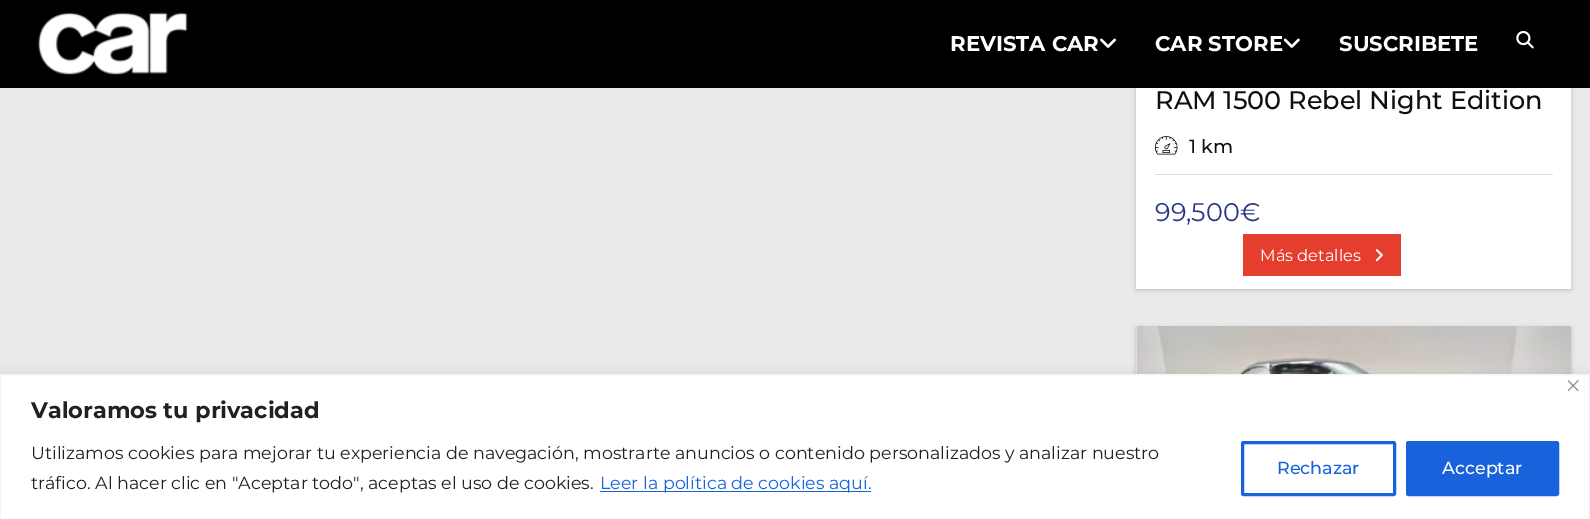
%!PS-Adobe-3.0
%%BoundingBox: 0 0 1590 519
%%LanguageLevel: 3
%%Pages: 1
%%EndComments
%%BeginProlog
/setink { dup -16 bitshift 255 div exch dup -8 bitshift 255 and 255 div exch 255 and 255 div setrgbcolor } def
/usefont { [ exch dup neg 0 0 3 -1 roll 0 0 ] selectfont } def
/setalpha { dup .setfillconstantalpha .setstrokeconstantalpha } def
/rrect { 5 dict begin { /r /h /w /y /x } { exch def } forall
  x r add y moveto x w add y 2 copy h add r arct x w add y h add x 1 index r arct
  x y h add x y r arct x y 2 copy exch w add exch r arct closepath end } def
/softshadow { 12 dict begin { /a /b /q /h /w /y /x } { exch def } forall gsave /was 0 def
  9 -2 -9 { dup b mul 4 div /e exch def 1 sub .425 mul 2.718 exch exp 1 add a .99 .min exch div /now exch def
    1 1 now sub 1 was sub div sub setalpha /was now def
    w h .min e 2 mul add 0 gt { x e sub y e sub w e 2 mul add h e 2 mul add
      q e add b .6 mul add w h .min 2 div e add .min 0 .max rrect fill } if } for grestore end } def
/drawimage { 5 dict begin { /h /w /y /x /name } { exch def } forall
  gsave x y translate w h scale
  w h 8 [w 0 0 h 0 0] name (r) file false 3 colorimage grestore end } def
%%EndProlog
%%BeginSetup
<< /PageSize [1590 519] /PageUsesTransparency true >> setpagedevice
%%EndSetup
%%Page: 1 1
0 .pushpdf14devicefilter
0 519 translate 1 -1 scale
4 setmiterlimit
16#EAEAEA setink
0 0 1590 519 rectfill
16#000000 setink
1136 -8 435 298 0 2.5 0.18 softshadow
0 0 1590 88 rectfill
(img1.raw) 38 12 150 63 drawimage
/Montserrat-Bold 21.25 usefont
16#FFFFFF setink
950 51 moveto (REVISTA CAR) show
(img2.raw) 1100 38 16 10 drawimage
1155 51 moveto (CAR STORE) show
(img3.raw) 1283 38 17 10 drawimage
1339 51 moveto (SUSCRIBETE) show
(img4.raw) 1516 30 18 19 drawimage
1136 88 435 201 rectfill
/Montserrat-Medium 25.5 usefont
16#0F0F0F setink
1155 109 moveto (RAM 1500 Rebel Night Edition) show
16#DDDDDD setink
1155 174 398 1 rectfill
(img5.raw) 1155 136 23 19 drawimage
/Montserrat-Medium 19 usefont
16#0F0F0F setink
1189 153 moveto (1 km) show
/Montserrat-Regular 25.5 usefont
16#283583 setink
1155 221 moveto (99,500€) show
16#E63E2E setink
1243 234 158 42 rectfill
/Montserrat-Regular 16.25 usefont
16#FFFFFF setink
1260 261 moveto (Más detalles) show
(img6.raw) 1375 249 8 13 drawimage
16#000000 setink
1136 328 435 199 0 2.5 0.18 softshadow
16#FFFFFF setink
1136 326 1 48 rectfill
(img7.raw) 1136 326 435 48 drawimage
16#ACABAB setink
0 373 1590 146 0 6 0.3 softshadow
16#FFFFFF setink
0.5 374.5 moveto 1589.5 374.5 lineto 1589.5 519.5 lineto 0.5 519.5 lineto closepath gsave fill grestore
16#F4F4F4 setink
stroke
(img8.raw) 1568 380 11 11 drawimage
/Montserrat-Bold 22.5 usefont
16#212121 setink
31 418 moveto (Valoramos tu privacidad) show
/Montserrat-Regular 17.5 usefont
31 459 moveto (Utilizamos cookies para mejorar tu experiencia de navegación, mostrarte anuncios o contenido personalizados y analizar nuestro) show
31 489 moveto (tráfico. Al hacer clic en "Aceptar todo", aceptas el uso de cookies.) show
16#1863DC setink
600 491 271 1 rectfill
600 489 moveto (Leer la política de cookies aquí.) show
3 setlinewidth
1242.5 442.5 152 52 1 rrect stroke
/Montserrat-Medium 17.5 usefont
1277 474 moveto (Rechazar) show
1407.5 442.5 150 52 1 rrect gsave fill grestore
stroke
16#FFFFFF setink
1442 474 moveto (Acceptar) show
.poppdf14devicefilter showpage
%%EOF
